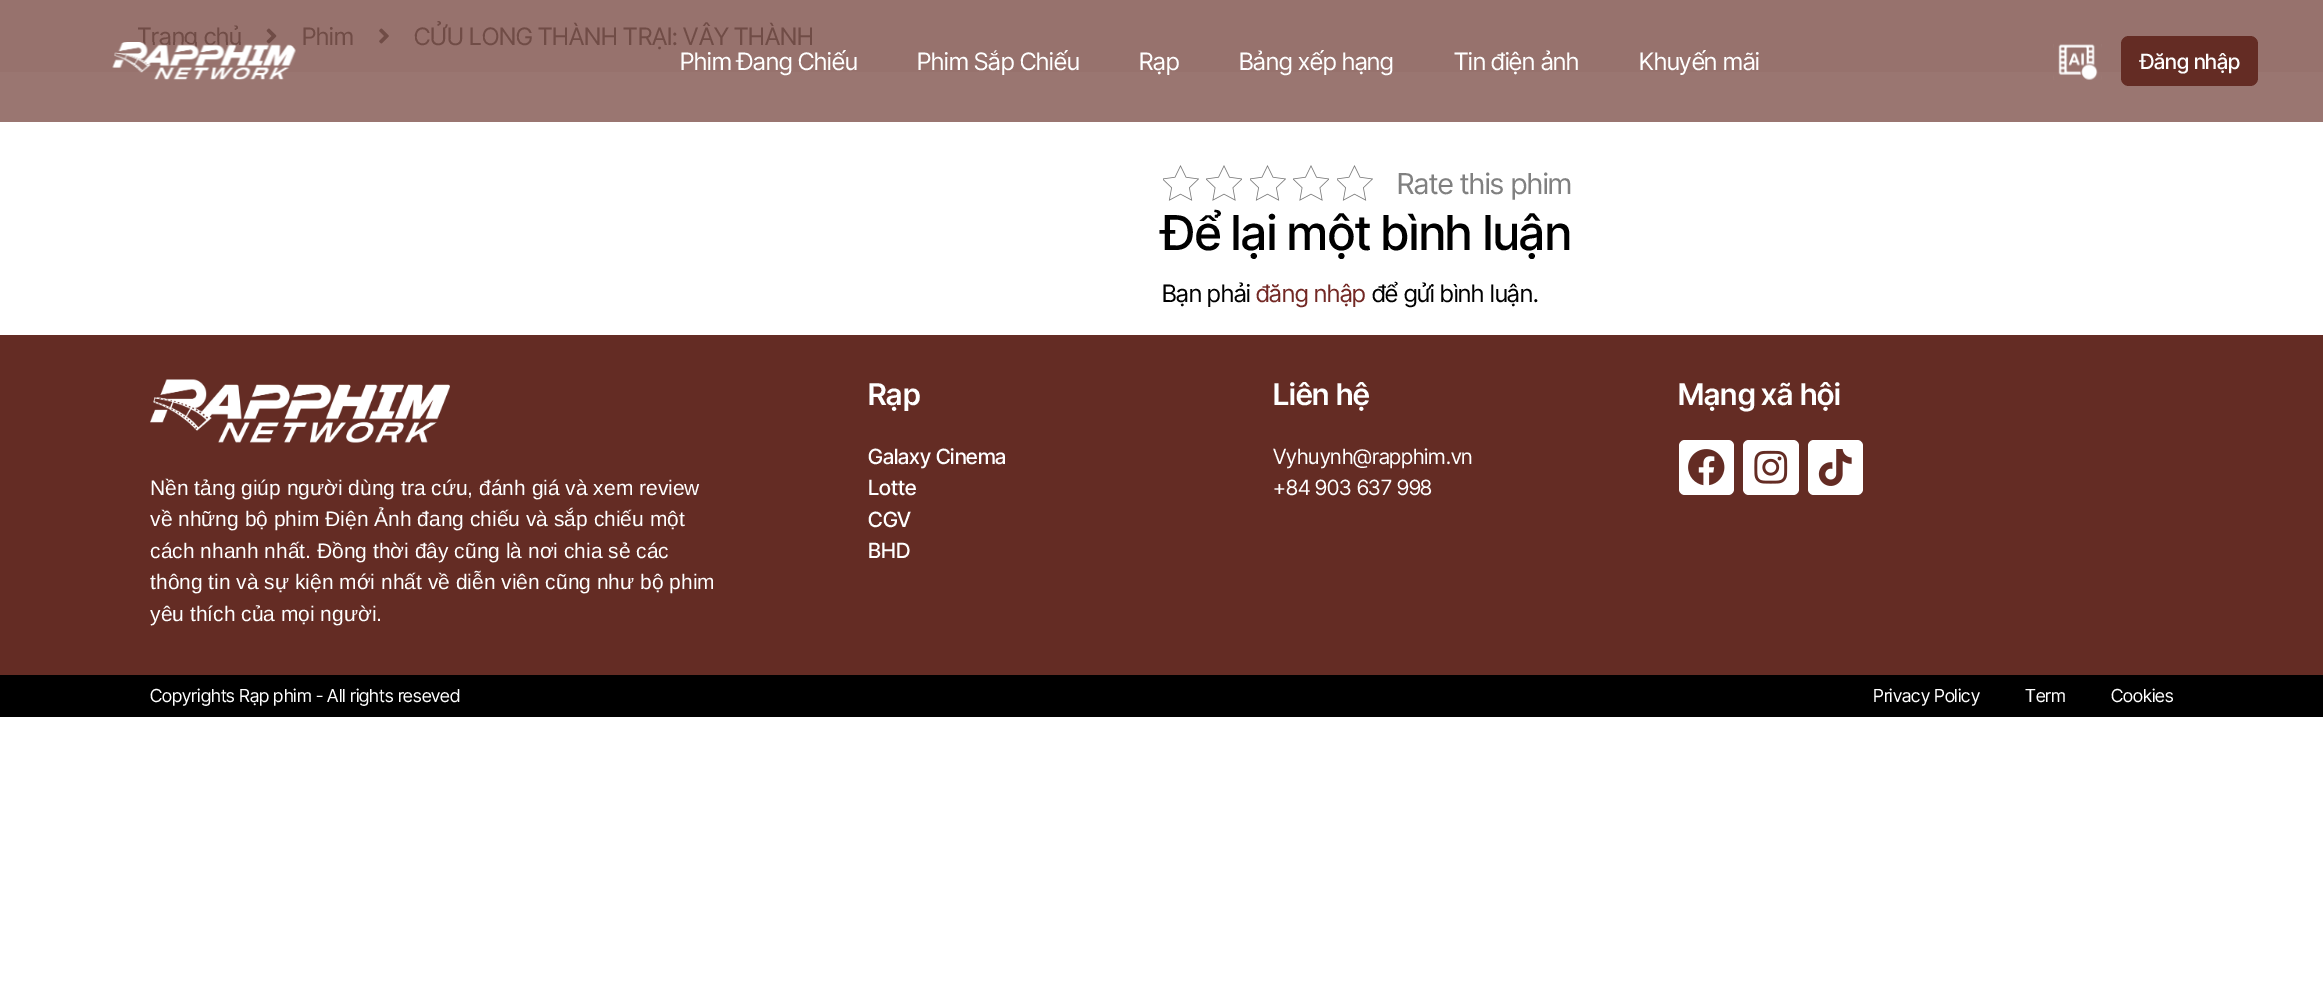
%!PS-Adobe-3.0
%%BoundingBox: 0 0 2323 1005
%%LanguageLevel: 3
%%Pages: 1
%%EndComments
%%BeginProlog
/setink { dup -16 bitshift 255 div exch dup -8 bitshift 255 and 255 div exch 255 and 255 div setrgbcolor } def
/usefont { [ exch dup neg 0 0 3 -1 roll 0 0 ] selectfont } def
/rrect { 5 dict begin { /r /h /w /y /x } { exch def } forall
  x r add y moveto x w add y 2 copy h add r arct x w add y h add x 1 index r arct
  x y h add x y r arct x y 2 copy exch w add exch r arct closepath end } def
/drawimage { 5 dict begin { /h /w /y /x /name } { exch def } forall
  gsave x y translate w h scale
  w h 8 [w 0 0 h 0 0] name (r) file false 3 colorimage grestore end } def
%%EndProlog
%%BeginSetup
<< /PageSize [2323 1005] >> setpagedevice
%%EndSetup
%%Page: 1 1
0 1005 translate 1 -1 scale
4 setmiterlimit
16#FFFFFF setink
0 0 2323 1005 rectfill
16#9A7671 setink
0 72 2323 50 rectfill
16#97726D setink
0 0 2323 72 rectfill
gsave
138 18 2049 36 rectclip
/InterTight-Regular 24 usefont
16#704C46 setink
137 45 moveto (Trang chủ) show
grestore
(img1.raw) 266 28 11 16 drawimage
/InterTight-Regular 24 usefont
16#704C46 setink
302 45 moveto (Phim) show
(img2.raw) 379 28 10 16 drawimage
414 45 moveto (CỬU LONG THÀNH TRẠI: VÂY THÀNH) show
(img3.raw) 1163 165 36 36 drawimage
(img4.raw) 1206 165 36 36 drawimage
(img3.raw) 1250 165 36 36 drawimage
(img4.raw) 1293 165 36 36 drawimage
(img3.raw) 1337 165 36 36 drawimage
/InterTight-Regular 28.75 usefont
16#808080 setink
1397 194 moveto (Rate this phim) show
/InterTight-Medium 48 usefont
16#000000 setink
1162 250 moveto (Để lại một bình luận) show
/InterTight-Regular 24 usefont
1162 302 moveto (Bạn phải) show
16#732824 setink
1256 302 moveto (đăng nhập) show
16#000000 setink
1372 302 moveto (để gửi bình luận.) show
(img5.raw) 112 42 184 38 drawimage
16#FFFFFF setink
[
    [(Phim Đang Chiếu) 680 70]
    [(Phim Sắp Chiếu) 917 70]
    [(Rạp) 1139 70]
    [(Bảng xếp hạng) 1239 70]
    [(Tin điện ảnh) 1454 70]
    [(Khuyến mãi) 1639 70]
] { aload pop moveto show } forall
(img6.raw) 2053 44 49 36 drawimage
16#642C24 setink
2121 36 137 50 8 rrect fill
/InterTight-Medium 21 usefont
16#FFFFFF setink
2140 69 moveto (Đăng nhập) show
16#642C24 setink
0 335 2323 340 rectfill
(img7.raw) 150 379 300 64 drawimage
/LiberationSans-Regular 21 usefont
16#FFFFFF setink
[
    [(Nền tảng giúp người dùng tra cứu, đánh giá và xem review) 150 495]
    [(về những bộ phim Điện Ảnh đang chiếu và sắp chiếu một) 150 526]
    [(cách nhanh nhất. Đồng thời đây cũng là nơi chia sẻ các) 150 558]
    [(thông tin và sự kiện mới nhất về diễn viên cũng như bộ phim) 150 589]
    [(yêu thích của mọi người.) 150 621]
] { aload pop moveto show } forall
/InterTight-SemiBold 30 usefont
868 405 moveto (Rạp) show
/InterTight-Medium 21 usefont
[
    [(Galaxy Cinema) 868 464]
    [(Lotte) 868 495]
    [(CGV) 868 527]
    [(BHD) 868 558]
] { aload pop moveto show } forall
/InterTight-SemiBold 30 usefont
1273 405 moveto (Liên hệ) show
/InterTight-Regular 21 usefont
1273 464 moveto (Vyhuynh@rapphim.vn) show
1273 495 moveto (+84 903 637 998) show
/InterTight-SemiBold 30 usefont
1678 405 moveto (Mạng xã hội) show
1679 440 55 55 6 rrect fill
(img8.raw) 1688 449 37 37 drawimage
1743 440 56 55 6 rrect fill
(img9.raw) 1754 450 34 34 drawimage
1808 440 55 55 6 rrect fill
(img10.raw) 1818 449 34 37 drawimage
16#000000 setink
0 675 2323 42 rectfill
/InterTight-Regular 18 usefont
16#FFFFFF setink
[
    [(Copyrights Rạp phim - All rights reseved) 150 702]
    [(Privacy Policy) 1873 702]
    [(Term) 2025 702]
    [(Cookies) 2111 702]
] { aload pop moveto show } forall
showpage
%%EOF
